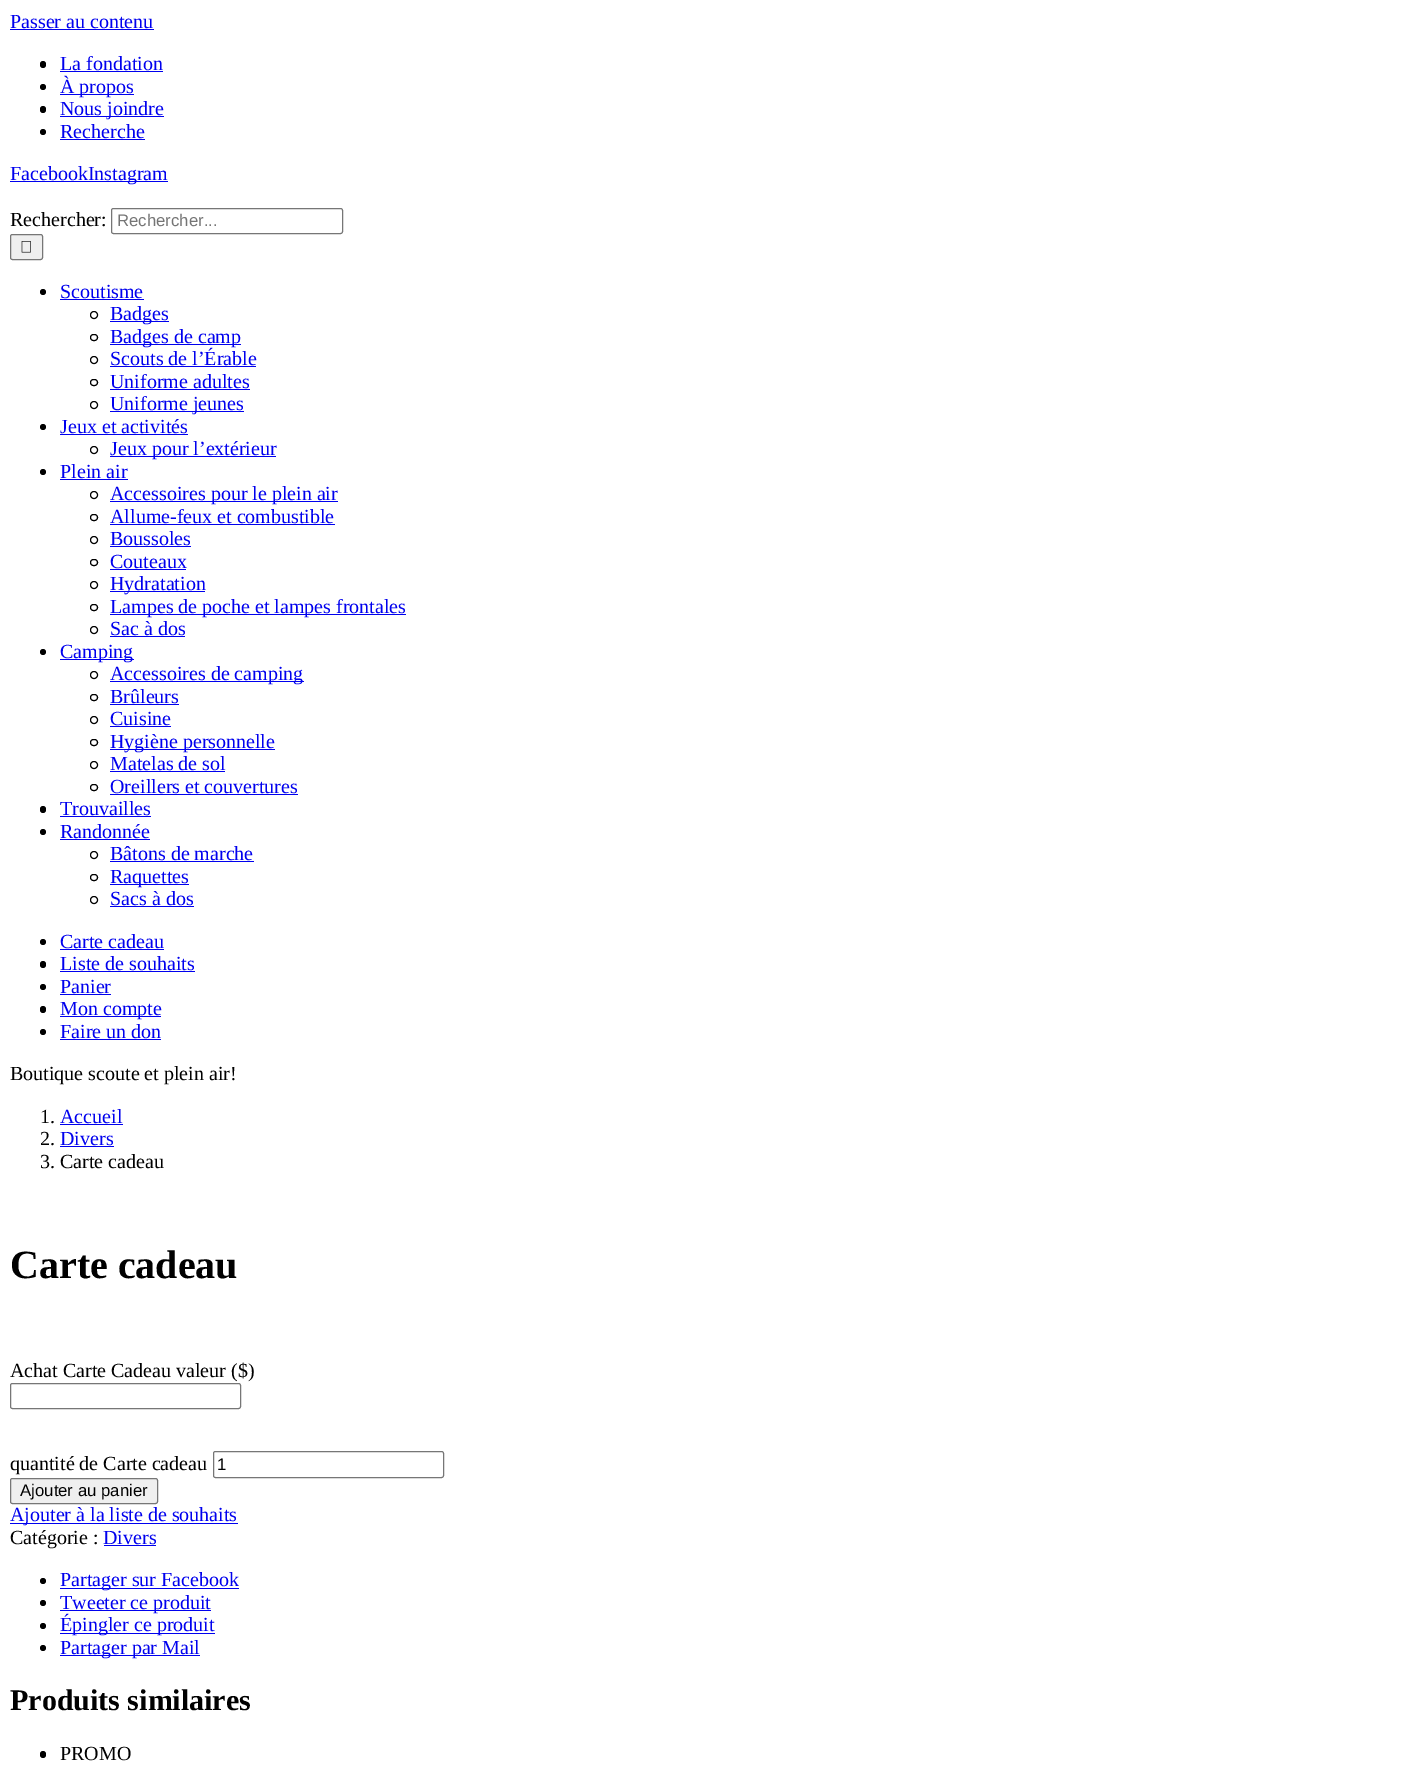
%!PS-Adobe-3.0
%%BoundingBox: 0 0 1401 1787
%%LanguageLevel: 3
%%Pages: 1
%%EndComments
%%BeginProlog
/setink { dup -16 bitshift 255 div exch dup -8 bitshift 255 and 255 div exch 255 and 255 div setrgbcolor } def
/usefont { [ exch dup neg 0 0 3 -1 roll 0 0 ] selectfont } def
/disc { newpath 0 360 arc closepath } def
/rrect { 5 dict begin { /r /h /w /y /x } { exch def } forall
  x r add y moveto x w add y 2 copy h add r arct x w add y h add x 1 index r arct
  x y h add x y r arct x y 2 copy exch w add exch r arct closepath end } def
/drawimage { 5 dict begin { /h /w /y /x /name } { exch def } forall
  gsave x y translate w h scale
  w h 8 [w 0 0 h 0 0] name (r) file false 3 colorimage grestore end } def
%%EndProlog
%%BeginSetup
<< /PageSize [1401 1787] >> setpagedevice
%%EndSetup
%%Page: 1 1
0 1787 translate 1 -1 scale
4 setmiterlimit
16#FFFFFF setink
0 0 1401 1787 rectfill
/LiberationSerif-Regular 20 usefont
16#0000EE setink
10 28 moveto (Passer au contenu) show
10 29 144 1 rectfill
16#000000 setink
40 61 6 7 3 rrect fill
16#0000EE setink
60 70 moveto (La fondation) show
60 71 103 1 rectfill
16#000000 setink
43 87 3 disc fill
16#0000EE setink
60 94 74 1 rectfill
60 93 moveto (À propos) show
16#000000 setink
40 106 6 7 3 rrect fill
16#0000EE setink
60 116 104 1 rectfill
60 115 moveto (Nous joindre) show
16#000000 setink
43 132 3 disc fill
16#0000EE setink
60 138 moveto (Recherche) show
60 139 85 1 rectfill
10 181 158 1 rectfill
10 180 moveto (FacebookInstagram) show
16#000000 setink
10 226 moveto (Rechercher:) show
16#767676 setink
111.5 208.5 231 25 2 rrect stroke
/LiberationSans-Regular 16.75 usefont
16#757575 setink
117 226 moveto (Rechercher...) show
16#EFEFEF setink
10.5 234.5 32 25 2 rrect gsave fill grestore
16#767676 setink
stroke
(img1.raw) 21 241 10 12 drawimage
16#000000 setink
43 292 3 disc fill
/LiberationSerif-Regular 20 usefont
16#0000EE setink
60 298 moveto (Scoutisme) show
60 299 84 1 rectfill
16#000000 setink
94 315 3.5 disc stroke
16#0000EE setink
110 321 59 1 rectfill
110 320 moveto (Badges) show
16#000000 setink
90.5 334.5 7 6 3 rrect stroke
16#0000EE setink
110 344 131 1 rectfill
110 343 moveto (Badges de camp) show
16#000000 setink
94 360 3.5 disc stroke
16#0000EE setink
110 365 moveto (Scouts de l’Érable) show
110 366 146 1 rectfill
16#000000 setink
90.5 379.5 7 6 3 rrect stroke
16#0000EE setink
110 388 moveto (Uniforme adultes) show
110 389 140 1 rectfill
16#000000 setink
94 405 3.5 disc stroke
16#0000EE setink
110 411 134 1 rectfill
110 410 moveto (Uniforme jeunes) show
16#000000 setink
43 427 3 disc fill
16#0000EE setink
60 433 moveto (Jeux et activités) show
60 434 128 1 rectfill
16#000000 setink
94 450 3.5 disc stroke
16#0000EE setink
110 456 166 1 rectfill
110 455 moveto (Jeux pour l’extérieur) show
16#000000 setink
43 472 3 disc fill
16#0000EE setink
60 478 moveto (Plein air) show
60 479 68 1 rectfill
16#000000 setink
94 495 3.5 disc stroke
16#0000EE setink
110 501 228 1 rectfill
110 500 moveto (Accessoires pour le plein air) show
16#000000 setink
90.5 514.5 7 6 3 rrect stroke
16#0000EE setink
110 523 moveto (Allume-feux et combustible) show
110 524 225 1 rectfill
16#000000 setink
94 540 3.5 disc stroke
16#0000EE setink
110 545 moveto (Boussoles) show
110 546 81 1 rectfill
16#000000 setink
90.5 559.5 7 6 3 rrect stroke
16#0000EE setink
110 568 moveto (Couteaux) show
110 569 76 1 rectfill
16#000000 setink
94 585 3.5 disc stroke
16#0000EE setink
110 591 95 1 rectfill
110 590 moveto (Hydratation) show
16#000000 setink
90.5 604.5 7 6 3 rrect stroke
16#0000EE setink
110 614 296 1 rectfill
110 613 moveto (Lampes de poche et lampes frontales) show
16#000000 setink
94 630 3.5 disc stroke
16#0000EE setink
110 635 moveto (Sac à dos) show
110 636 75 1 rectfill
16#000000 setink
43 652 3 disc fill
16#0000EE setink
60 659 74 1 rectfill
60 658 moveto (Camping) show
16#000000 setink
94 675 3.5 disc stroke
16#0000EE setink
110 681 194 1 rectfill
110 680 moveto (Accessoires de camping) show
16#000000 setink
90.5 694.5 7 6 3 rrect stroke
16#0000EE setink
110 703 moveto (Brûleurs) show
110 704 69 1 rectfill
16#000000 setink
94 720 3.5 disc stroke
16#0000EE setink
110 725 moveto (Cuisine) show
110 726 61 1 rectfill
16#000000 setink
90.5 739.5 7 6 3 rrect stroke
16#0000EE setink
110 749 165 1 rectfill
110 748 moveto (Hygiène personnelle) show
16#000000 setink
94 765 3.5 disc stroke
16#0000EE setink
110 770 moveto (Matelas de sol) show
110 771 115 1 rectfill
16#000000 setink
90.5 784.5 7 6 3 rrect stroke
16#0000EE setink
110 793 moveto (Oreillers et couvertures) show
110 794 188 1 rectfill
16#000000 setink
40 806 6 7 3 rrect fill
16#0000EE setink
60 815 moveto (Trouvailles) show
60 816 91 1 rectfill
16#000000 setink
43 832 3 disc fill
16#0000EE setink
60 838 moveto (Randonnée) show
60 839 90 1 rectfill
16#000000 setink
94 855 3.5 disc stroke
16#0000EE setink
110 860 moveto (Bâtons de marche) show
110 861 144 1 rectfill
16#000000 setink
90.5 874.5 7 6 3 rrect stroke
16#0000EE setink
110 884 79 1 rectfill
110 883 moveto (Raquettes) show
16#000000 setink
94 900 3.5 disc stroke
16#0000EE setink
110 905 moveto (Sacs à dos) show
110 906 84 1 rectfill
16#000000 setink
43 942 3 disc fill
16#0000EE setink
60 948 moveto (Carte cadeau) show
60 949 104 1 rectfill
16#000000 setink
40 961 6 7 3 rrect fill
16#0000EE setink
60 970 moveto (Liste de souhaits) show
60 971 135 1 rectfill
16#000000 setink
43 987 3 disc fill
16#0000EE setink
60 993 moveto (Panier) show
60 994 51 1 rectfill
16#000000 setink
40 1006 6 7 3 rrect fill
16#0000EE setink
60 1016 101 1 rectfill
60 1015 moveto (Mon compte) show
16#000000 setink
43 1032 3 disc fill
16#0000EE setink
60 1038 moveto (Faire un don) show
60 1039 101 1 rectfill
16#000000 setink
10 1080 moveto (Boutique scoute et plein air!) show
40 1123 moveto (1.) show
16#0000EE setink
60 1123 moveto (Accueil) show
60 1124 63 1 rectfill
16#000000 setink
40 1145 moveto (2.) show
16#0000EE setink
60 1145 moveto (Divers) show
60 1146 54 1 rectfill
16#000000 setink
40 1168 moveto (3. Carte cadeau) show
/LiberationSerif-Bold 40 usefont
10 1278 moveto (Carte cadeau) show
/LiberationSerif-Regular 20 usefont
10 1377 moveto (Achat Carte Cadeau valeur \($\)) show
16#767676 setink
10.5 1383.5 230 25 2 rrect stroke
16#000000 setink
10 1470 moveto (quantité de Carte cadeau) show
16#767676 setink
213.5 1451.5 230 26 2 rrect stroke
/LiberationSans-Regular 16.75 usefont
16#000000 setink
217 1470 moveto (1) show
16#EFEFEF setink
10.5 1478.5 147 25 2 rrect gsave fill grestore
16#767676 setink
stroke
16#000000 setink
20 1496 moveto (Ajouter au panier) show
16#0000EE setink
10 1523 228 1 rectfill
/LiberationSerif-Regular 20 usefont
10 1521 moveto (Ajouter à la liste de souhaits) show
16#000000 setink
10 1544 moveto (Catégorie :) show
16#0000EE setink
103 1544 moveto (Divers) show
104 1545 52 1 rectfill
16#000000 setink
43 1581 3 disc fill
16#0000EE setink
60 1588 179 1 rectfill
60 1586 moveto (Partager sur Facebook) show
16#000000 setink
43 1603 3 disc fill
16#0000EE setink
60 1610 151 1 rectfill
60 1609 moveto (Tweeter ce produit) show
16#000000 setink
43 1626 3 disc fill
16#0000EE setink
60 1633 155 1 rectfill
60 1631 moveto (Épingler ce produit) show
16#000000 setink
43 1648 3 disc fill
16#0000EE setink
60 1655 140 1 rectfill
60 1654 moveto (Partager par Mail) show
/LiberationSerif-Bold 30 usefont
16#000000 setink
10 1710 moveto (Produits similaires) show
40 1751 6 7 3 rrect fill
/LiberationSerif-Regular 20 usefont
60 1760 moveto (PROMO) show
showpage
%%EOF
